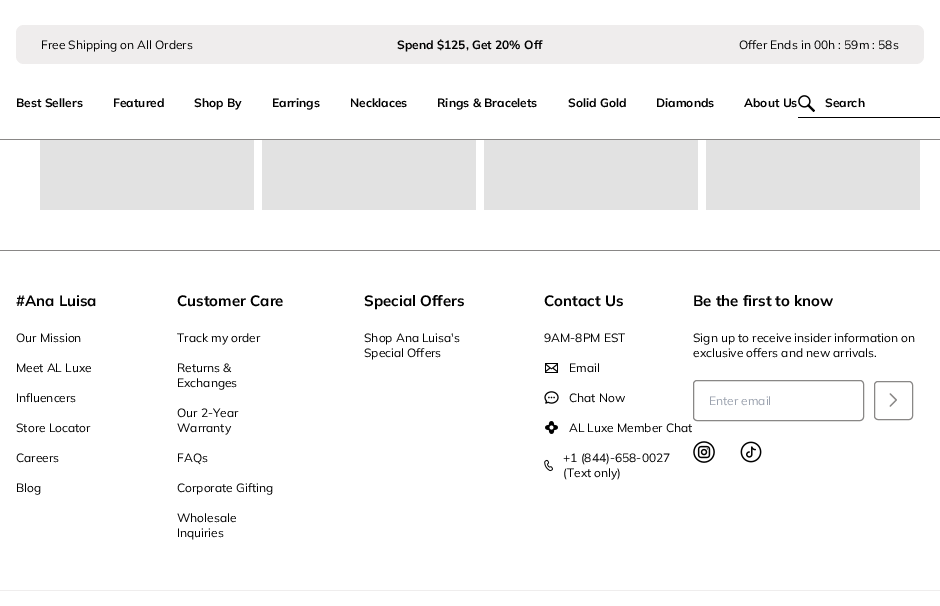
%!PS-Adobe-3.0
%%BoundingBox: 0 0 940 606
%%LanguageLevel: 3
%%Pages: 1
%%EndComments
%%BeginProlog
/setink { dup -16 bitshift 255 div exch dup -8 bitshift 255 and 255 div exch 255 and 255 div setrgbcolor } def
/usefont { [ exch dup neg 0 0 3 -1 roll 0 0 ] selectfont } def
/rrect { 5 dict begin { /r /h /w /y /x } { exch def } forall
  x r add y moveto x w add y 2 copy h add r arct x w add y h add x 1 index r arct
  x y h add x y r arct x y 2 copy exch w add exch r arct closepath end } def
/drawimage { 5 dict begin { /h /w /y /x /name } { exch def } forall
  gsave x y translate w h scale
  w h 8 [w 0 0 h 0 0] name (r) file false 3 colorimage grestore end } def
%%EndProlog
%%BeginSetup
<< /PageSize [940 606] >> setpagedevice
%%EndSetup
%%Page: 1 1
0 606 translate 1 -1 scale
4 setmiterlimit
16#FFFFFF setink
0 0 940 606 rectfill
16#EFEDED setink
16 25 908 39 8 rrect fill
/Mulish-Regular 12 usefont
16#000000 setink
41 49 moveto (Free Shipping on All Orders) show
/Mulish-Bold 12 usefont
397 49 moveto (Spend $125, Get 20% Off) show
/Mulish-Regular 12 usefont
739 49 moveto (Offer Ends in 00h : 59m : 58s) show
16#898786 setink
0 139 940 1 rectfill
/Mulish-Bold 12 usefont
16#000000 setink
[
    [(Best Sellers) 16 107]
    [(Featured) 113 107]
    [(Shop By) 194 107]
    [(Earrings) 272 107]
    [(Necklaces) 350 107]
    [(Rings & Bracelets) 437 107]
    [(Solid Gold) 568 107]
    [(Diamonds) 656 107]
    [(About Us) 744 107]
] { aload pop moveto show } forall
798 117 142 1 rectfill
(img1.raw) 798 95 17 17 drawimage
825 107 moveto (Search) show
[
    [40 140 214 70 16#E2E2E2]
    [262 140 214 70 16#E2E2E2]
    [484 140 214 70 16#E2E2E2]
    [706 140 214 70 16#E2E2E2]
    [0 250 940 1 16#898786]
] { aload pop setink rectfill } forall
/Mulish-Bold 15 usefont
16#000000 setink
16 306 moveto (#Ana Luisa) show
/Mulish-Regular 12 usefont
[
    [(Our Mission) 16 342]
    [(Meet AL Luxe) 16 372]
    [(Influencers) 16 402]
    [(Store Locator) 16 432]
    [(Careers) 16 462]
    [(Blog) 16 492]
] { aload pop moveto show } forall
/Mulish-Bold 15 usefont
177 306 moveto (Customer Care) show
/Mulish-Regular 12 usefont
[
    [(Track my order) 177 342]
    [(Returns &) 177 372]
    [(Exchanges) 177 387]
    [(Our 2-Year) 177 417]
    [(Warranty) 177 432]
    [(FAQs) 177 462]
    [(Corporate Gifting) 177 492]
    [(Wholesale) 177 522]
    [(Inquiries) 177 537]
] { aload pop moveto show } forall
/Mulish-Bold 15 usefont
364 306 moveto (Special Offers) show
/Mulish-Regular 12 usefont
364 342 moveto (Shop Ana Luisa's) show
364 357 moveto (Special Offers) show
/Mulish-Bold 15 usefont
544 306 moveto (Contact Us) show
/Mulish-Regular 12 usefont
544 342 moveto (9AM-8PM EST) show
(img2.raw) 545 363 13 10 drawimage
569 372 moveto (Email) show
(img3.raw) 544 391 15 13 drawimage
569 402 moveto (Chat Now) show
(img4.raw) 545 421 13 13 drawimage
569 432 moveto (AL Luxe Member Chat) show
(img5.raw) 544 459 9 13 drawimage
563 462 moveto (+1 \(844\)-658-0027) show
563 477 moveto (\(Text only\)) show
/Mulish-Bold 15 usefont
693 306 moveto (Be the first to know) show
/Mulish-Regular 12 usefont
693 342 moveto (Sign up to receive insider information on) show
693 357 moveto (exclusive offers and new arrivals.) show
16#898786 setink
693.5 380.5 170 40 3.5 rrect stroke
16#9CA3AF setink
709 405 moveto (Enter email) show
16#898786 setink
874.5 381.5 38 38 3.5 rrect stroke
(img6.raw) 889 393 8 14 drawimage
(img7.raw) 693 441 22 22 drawimage
(img8.raw) 740 441 22 22 drawimage
16#EFEDED setink
0 590 940 1 rectfill
showpage
%%EOF
